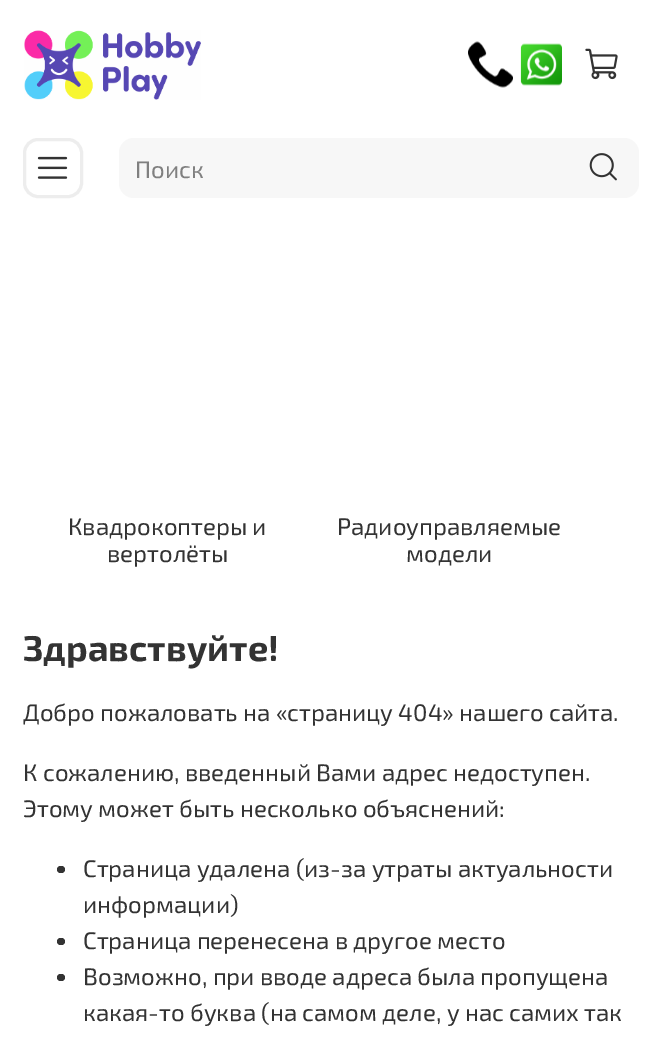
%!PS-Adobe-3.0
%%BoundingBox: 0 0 661 1044
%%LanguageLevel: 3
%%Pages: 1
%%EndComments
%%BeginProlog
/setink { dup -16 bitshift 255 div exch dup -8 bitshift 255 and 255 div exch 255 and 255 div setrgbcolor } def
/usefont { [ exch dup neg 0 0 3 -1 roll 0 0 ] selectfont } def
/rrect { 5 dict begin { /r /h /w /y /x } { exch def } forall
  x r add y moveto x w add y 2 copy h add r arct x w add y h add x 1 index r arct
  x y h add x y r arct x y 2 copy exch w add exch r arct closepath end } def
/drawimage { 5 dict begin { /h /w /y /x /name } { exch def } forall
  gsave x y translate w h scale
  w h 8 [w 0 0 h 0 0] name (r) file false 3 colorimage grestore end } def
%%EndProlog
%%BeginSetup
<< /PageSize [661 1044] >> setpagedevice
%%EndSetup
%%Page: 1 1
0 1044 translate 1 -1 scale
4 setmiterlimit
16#FFFFFF setink
0 0 661 1044 rectfill
(img1.raw) 24 30 177 70 drawimage
(img2.raw) 468 41 45 47 drawimage
(img3.raw) 520 43 42 43 drawimage
(img4.raw) 585 48 33 32 drawimage
16#EDEDED setink
3 setlinewidth
24.5 139.5 57 57 13.5 rrect stroke
(img5.raw) 37 156 31 23 drawimage
16#F7F7F7 setink
119 138 520 60 15 rrect fill
/Exo2-Regular 24 usefont
16#808080 setink
135 178 moveto (Поиск) show
(img6.raw) 589 153 28 28 drawimage
16#333333 setink
[
    [(Квадрокоптеры и) 68 535]
    [(вертолёты) 107 562]
    [(Радиоуправляемые) 337 535]
    [(модели) 406 562]
] { aload pop moveto show } forall
/Exo2-Bold 36 usefont
23 661 moveto (Здравствуйте!) show
/Exo2-Regular 24 usefont
[
    [(Добро пожаловать на «страницу 404» нашего сайта.) 23 721]
    [(К сожалению, введенный Вами адрес недоступен.) 23 781]
    [(Этому может быть несколько объяснений:) 23 817]
] { aload pop moveto show } forall
57 866 8 7 3.5 rrect fill
83 877 moveto (Страница удалена \(из-за утраты актуальности) show
83 913 moveto (информации\)) show
57 938 8 7 3.5 rrect fill
83 949 moveto (Страница перенесена в другое место) show
57 974 8 7 3.5 rrect fill
83 985 moveto (Возможно, при вводе адреса была пропущена) show
83 1021 moveto (какая-то буква \(на самом деле, у нас самих так) show
showpage
%%EOF
